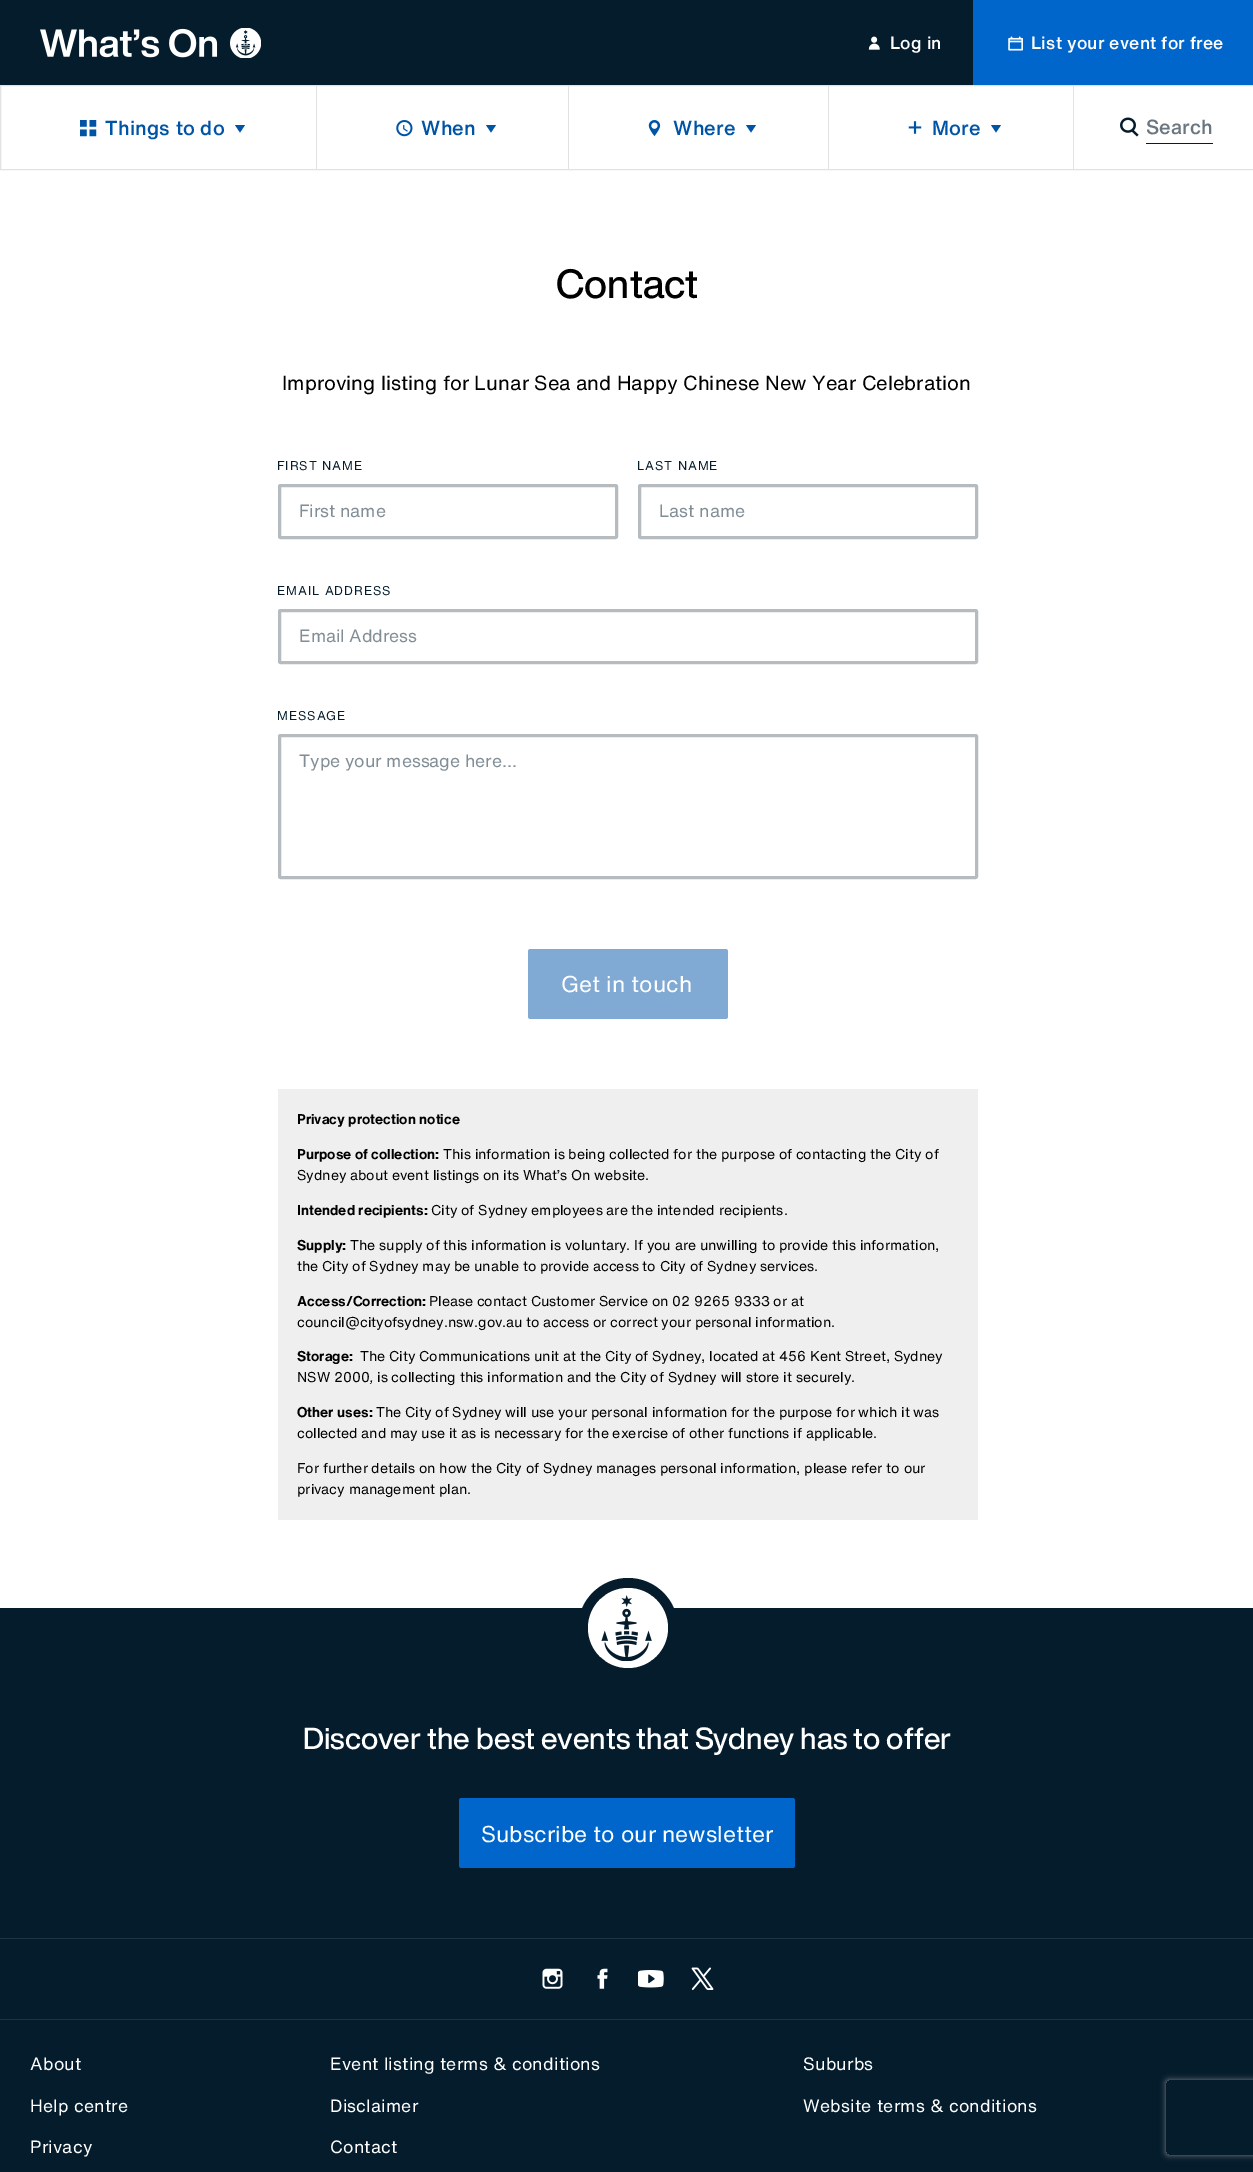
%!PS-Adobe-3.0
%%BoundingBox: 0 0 1253 2172
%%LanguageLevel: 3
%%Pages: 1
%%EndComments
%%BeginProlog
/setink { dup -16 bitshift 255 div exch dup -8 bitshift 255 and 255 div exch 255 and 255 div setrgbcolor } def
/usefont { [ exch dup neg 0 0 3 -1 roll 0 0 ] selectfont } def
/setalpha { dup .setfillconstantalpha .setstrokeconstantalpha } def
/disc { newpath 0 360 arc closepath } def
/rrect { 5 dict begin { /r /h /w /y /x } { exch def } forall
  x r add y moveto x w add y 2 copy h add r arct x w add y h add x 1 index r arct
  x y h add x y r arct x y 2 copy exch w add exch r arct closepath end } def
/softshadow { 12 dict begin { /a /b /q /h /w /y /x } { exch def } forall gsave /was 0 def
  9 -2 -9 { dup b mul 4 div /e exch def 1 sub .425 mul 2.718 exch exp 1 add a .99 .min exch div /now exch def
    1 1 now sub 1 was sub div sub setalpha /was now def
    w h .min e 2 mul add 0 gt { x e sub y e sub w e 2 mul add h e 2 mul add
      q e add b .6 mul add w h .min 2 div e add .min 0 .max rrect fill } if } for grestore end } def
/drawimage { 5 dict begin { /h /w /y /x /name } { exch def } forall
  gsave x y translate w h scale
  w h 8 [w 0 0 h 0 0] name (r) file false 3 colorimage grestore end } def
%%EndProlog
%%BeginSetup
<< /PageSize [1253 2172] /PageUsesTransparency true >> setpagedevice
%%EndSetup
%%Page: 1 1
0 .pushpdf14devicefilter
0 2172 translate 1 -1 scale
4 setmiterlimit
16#FFFFFF setink
0 0 1253 2172 rectfill
16#041C2C setink
0 0 973 85 rectfill
(img1.raw) 40 28 178 30 drawimage
(img2.raw) 230 28 31 30 drawimage
(img3.raw) 868 36 12 14 drawimage
/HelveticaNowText-Medium 17.5 usefont
16#FFFFFF setink
890 49 moveto 0.25 0 (Log in) ashow
16#0066CC setink
973 0 280 85 rectfill
(img4.raw) 1008 36 15 15 drawimage
16#FFFFFF setink
1031 49 moveto 0.25 0 (List your event for free) ashow
16#E2E2E2 setink
0.5 85.5 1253 84 rectstroke
1073 86 1 83 rectfill
316 86 1 83 rectfill
(img5.raw) 80 120 17 17 drawimage
/HelveticaNowText-Medium 20 usefont
16#0054A6 setink
105 135 moveto 0.25 0 (Things to do) ashow
235 125 moveto 245 125 lineto 240 132.5 lineto closepath fill
16#E2E2E2 setink
568 86 1 83 rectfill
(img6.raw) 396 120 17 17 drawimage
16#0054A6 setink
421 135 moveto 0.25 0 (When) ashow
486 125 moveto 496 125 lineto 491 132.5 lineto closepath fill
16#E2E2E2 setink
828 86 1 83 rectfill
(img7.raw) 648 120 13 17 drawimage
16#0054A6 setink
673 135 moveto 0.25 0 (Where) ashow
746 125 moveto 756 125 lineto 751 132.5 lineto closepath fill
(img8.raw) 908 121 14 13 drawimage
932 135 moveto 0.25 0 (More) ashow
991 125 moveto 1001 125 lineto 996 132.5 lineto closepath fill
(img9.raw) 1120 117 19 20 drawimage
16#041C2C setink
1146 143 67 1 rectfill
16#6B7780 setink
1146 134 moveto (Search) show
/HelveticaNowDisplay-Medium 40 usefont
16#000000 setink
556 298 moveto (Contact) show
/HelveticaNowText-Regular 20 usefont
282 390 moveto (Improving listing for Lunar Sea and Happy Chinese New Year Celebration) show
/HelveticaNowText-Regular 12.5 usefont
16#041C2C setink
277 470 moveto 0.9 0 (FIRST NAME) ashow
16#B5BBBF setink
3 setlinewidth
279.5 485.5 337 52 1 rrect stroke
/HelveticaNowText-Regular 17.5 usefont
16#828E96 setink
299 517 moveto (First name) show
/HelveticaNowText-Regular 12.5 usefont
16#041C2C setink
637 470 moveto 0.9 0 (LAST NAME) ashow
16#B5BBBF setink
639.5 485.5 337 52 1 rrect stroke
/HelveticaNowText-Regular 17.5 usefont
16#828E96 setink
659 517 moveto (Last name) show
/HelveticaNowText-Regular 12.5 usefont
16#041C2C setink
277 595 moveto 0.9 0 (EMAIL ADDRESS) ashow
16#B5BBBF setink
279.5 610.5 697 52 1 rrect stroke
/HelveticaNowText-Regular 17.5 usefont
16#828E96 setink
299 642 moveto (Email Address) show
/HelveticaNowText-Regular 12.5 usefont
16#041C2C setink
277 720 moveto 0.9 0 (MESSAGE) ashow
16#B5BBBF setink
279.5 735.5 697 142 1 rrect stroke
/HelveticaNowText-Regular 17.5 usefont
16#828E96 setink
299 767 moveto (Type your message here...) show
16#80AAD3 setink
528 949 200 70 2.5 rrect fill
/HelveticaNowText-Regular 22.5 usefont
16#FFFFFF setink
561 992 moveto (Get in touch) show
16#EFEFEF setink
278 1089 700 431 rectfill
/HelveticaNowText-Bold 14 usefont
16#000000 setink
297 1124 moveto (Privacy protection notice) show
297 1159 moveto (Purpose of collection:) show
/HelveticaNowText-Regular 14 usefont
443 1159 moveto (This information is being collected for the purpose of contacting the City of) show
297 1180 moveto (Sydney about event listings on its What’s On website.) show
/HelveticaNowText-Bold 14 usefont
297 1215 moveto (Intended recipients:) show
/HelveticaNowText-Regular 14 usefont
431 1215 moveto (City of Sydney employees are the intended recipients.) show
/HelveticaNowText-Bold 14 usefont
297 1250 moveto (Supply:) show
/HelveticaNowText-Regular 14 usefont
350 1250 moveto (The supply of this information is voluntary. If you are unwilling to provide this information,) show
297 1271 moveto (the City of Sydney may be unable to provide access to City of Sydney services.) show
/HelveticaNowText-Bold 14 usefont
297 1306 moveto (Access/Correction:) show
/HelveticaNowText-Regular 14 usefont
429 1306 moveto (Please contact Customer Service on 02 9265 9333 or at) show
297 1327 moveto (council@cityofsydney.nsw.gov.au to access or correct your personal information.) show
/HelveticaNowText-Bold 14 usefont
297 1361 moveto (Storage:) show
/HelveticaNowText-Regular 14 usefont
360 1361 moveto (The City Communications unit at the City of Sydney, located at 456 Kent Street, Sydney) show
297 1382 moveto (NSW 2000) show
/HelveticaNowText-Italic 14 usefont
369 1382 moveto (,) show
/HelveticaNowText-Regular 14 usefont
377 1382 moveto (is collecting this information and the City of Sydney will store it securely.) show
/HelveticaNowText-Bold 14 usefont
297 1417 moveto (Other uses:) show
/HelveticaNowText-Regular 14 usefont
[
    [(The City of Sydney will use your personal information for the purpose for which it was) 376 1417]
    [(collected and may use it as is necessary for the exercise of other functions if applicable.) 297 1438]
    [(For further details on how the City of Sydney manages personal information, please refer to our) 297 1473]
    [(privacy management plan.) 297 1494]
] { aload pop moveto show } forall
16#041C2C setink
0 1608 1253 330 rectfill
628 1628 50 disc fill
16#FFFFFF setink
628 1628 40 disc fill
(img10.raw) 601 1595 51 66 drawimage
/HelveticaNowDisplay-Medium 30 usefont
303 1749 moveto (Discover the best events that Sydney has to offer) show
16#0066CC setink
459 1798 336 70 2.5 rrect fill
/HelveticaNowText-Regular 22.5 usefont
16#FFFFFF setink
481 1842 moveto (Subscribe to our newsletter) show
16#041C2C setink
0 1939 1253 233 rectfill
16#1D3341 setink
0 1938 1253 1 rectfill
(img11.raw) 542 1968 21 21 drawimage
(img12.raw) 597 1968 11 21 drawimage
(img13.raw) 638 1970 26 18 drawimage
(img14.raw) 691 1967 23 23 drawimage
0 2019 1253 1 rectfill
/HelveticaNowText-Regular 17.5 usefont
16#FFFFFF setink
30 2070 moveto 0.25 0 (About) ashow
330 2070 moveto 0.25 0 (Event listing terms & conditions) ashow
803 2070 moveto 0.25 0 (Suburbs) ashow
30 2112 moveto 0.25 0 (Help centre) ashow
330 2112 moveto 0.25 0 (Disclaimer) ashow
803 2112 moveto 0.25 0 (Website terms & conditions) ashow
30 2153 moveto 0.25 0 (Privacy) ashow
330 2153 moveto 0.25 0 (Contact) ashow
gsave
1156 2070 moveto 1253 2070 lineto 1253 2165 lineto 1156 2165 lineto closepath 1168.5 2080 moveto 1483.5 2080 lineto 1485 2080 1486 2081 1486 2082.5 curveto 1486 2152.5 lineto 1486 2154 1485 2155 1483.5 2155 curveto 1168.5 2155 lineto 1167 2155 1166 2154 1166 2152.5 curveto 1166 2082.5 lineto 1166 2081 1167 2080 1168.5 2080 curveto closepath eoclip newpath
16#808080 setink
1166 2080 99 75 2.5 3 1 softshadow
grestore
.poppdf14devicefilter showpage
%%EOF
